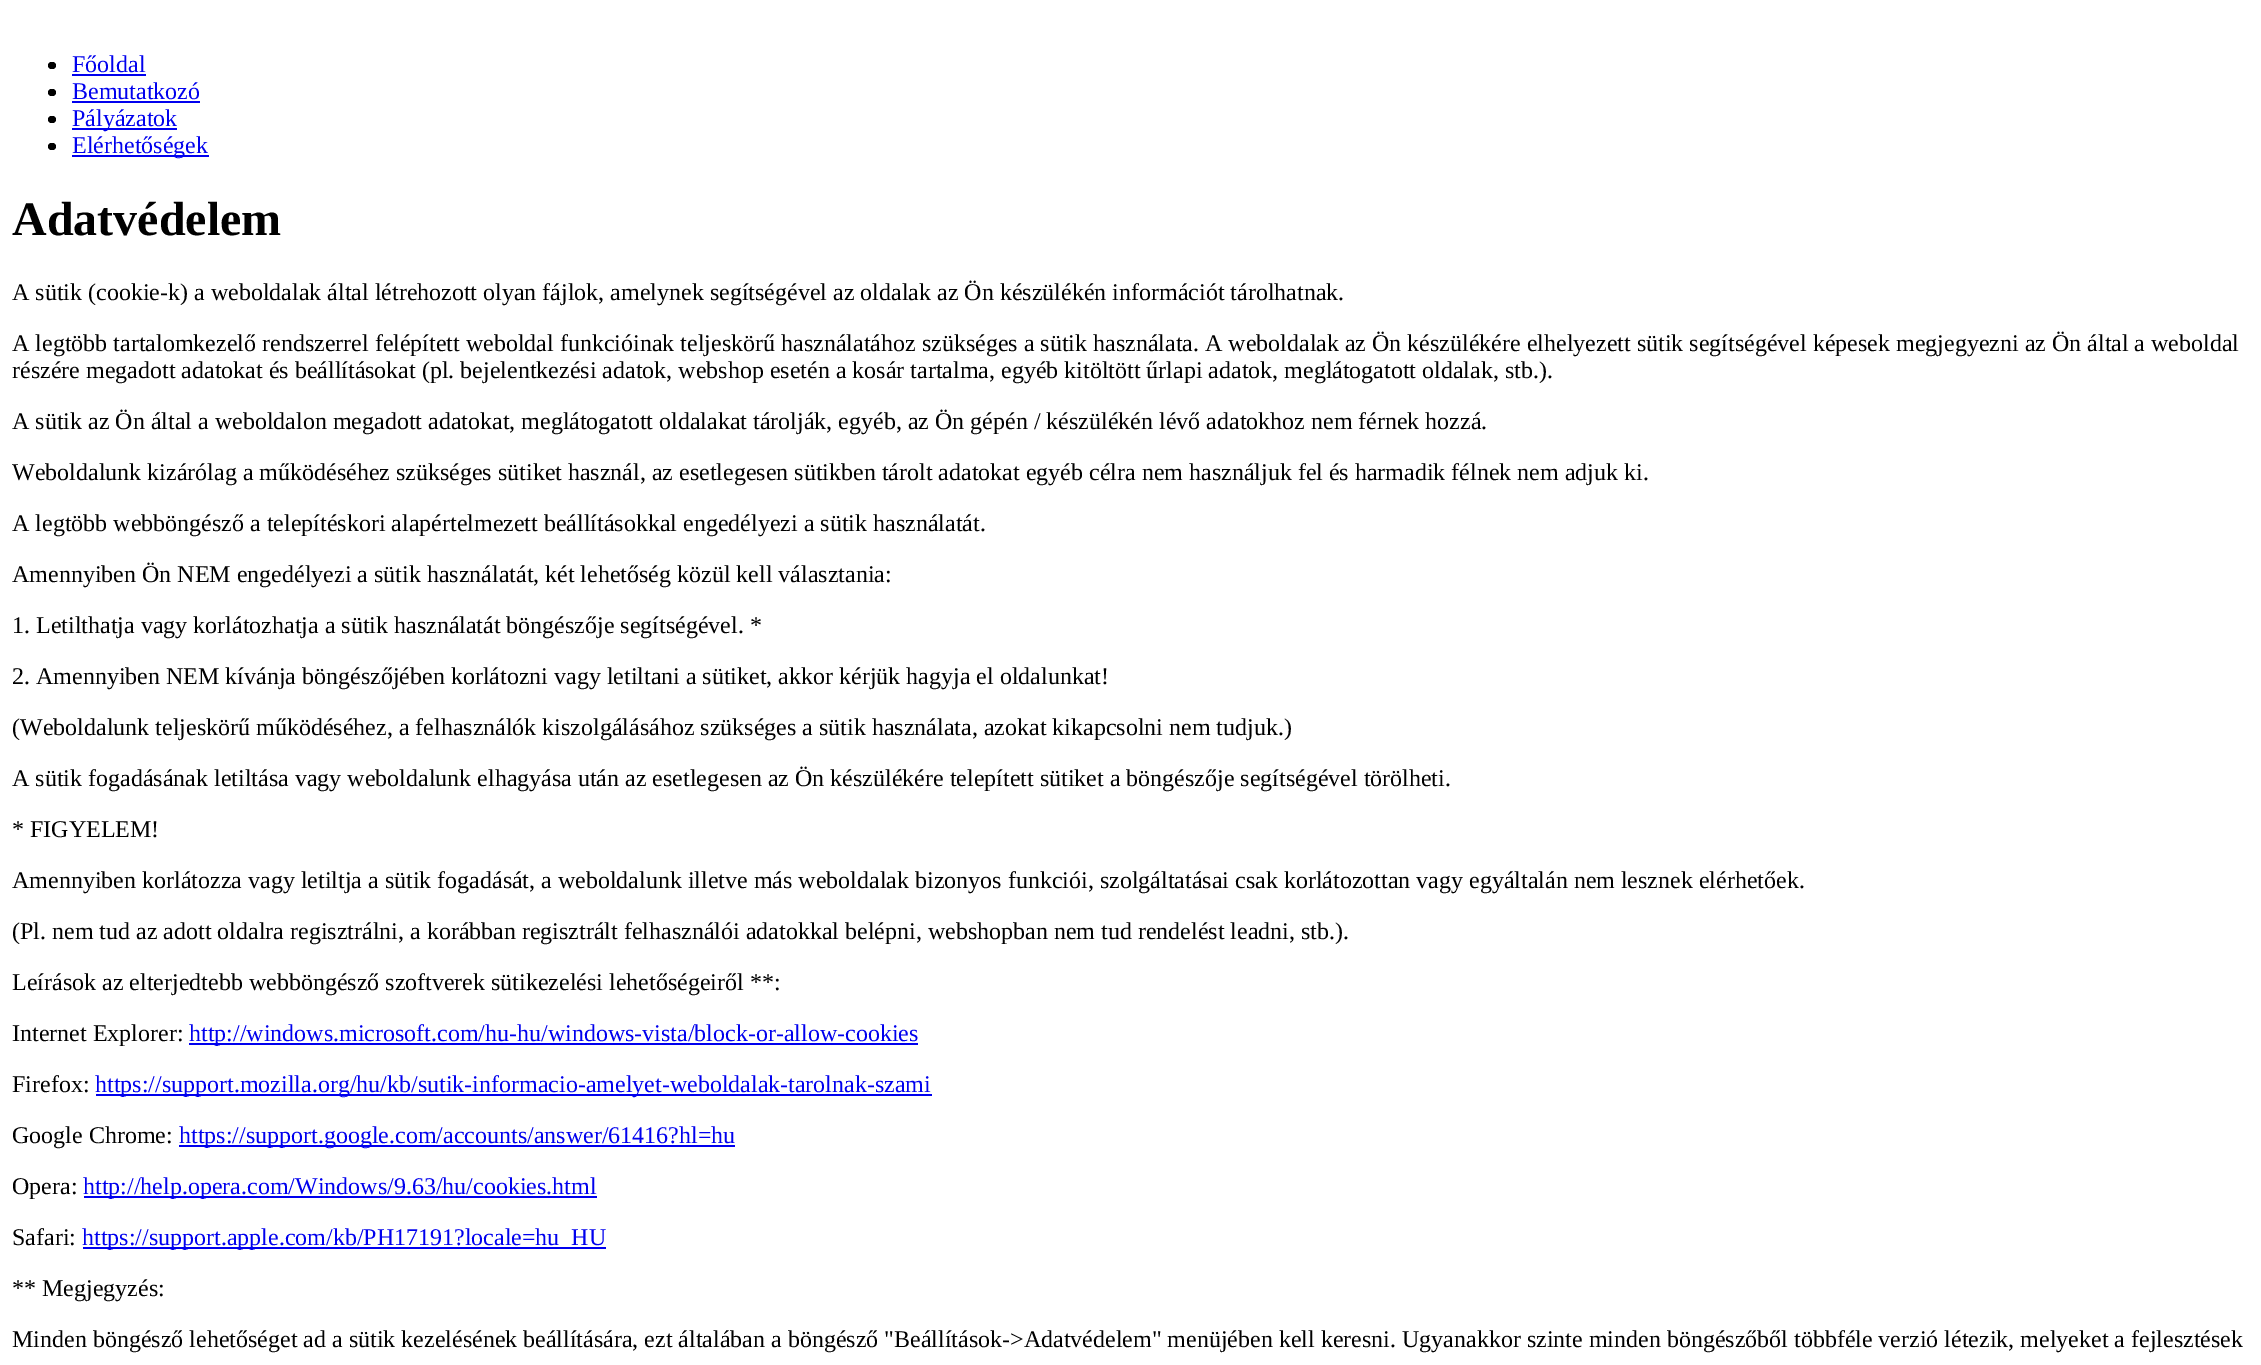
%!PS-Adobe-3.0
%%BoundingBox: 0 0 2261 1365
%%LanguageLevel: 3
%%Pages: 1
%%EndComments
%%BeginProlog
/setink { dup -16 bitshift 255 div exch dup -8 bitshift 255 and 255 div exch 255 and 255 div setrgbcolor } def
/usefont { [ exch dup neg 0 0 3 -1 roll 0 0 ] selectfont } def
/rrect { 5 dict begin { /r /h /w /y /x } { exch def } forall
  x r add y moveto x w add y 2 copy h add r arct x w add y h add x 1 index r arct
  x y h add x y r arct x y 2 copy exch w add exch r arct closepath end } def
%%EndProlog
%%BeginSetup
<< /PageSize [2261 1365] >> setpagedevice
%%EndSetup
%%Page: 1 1
0 1365 translate 1 -1 scale
4 setmiterlimit
16#FFFFFF setink
0 0 2261 1365 rectfill
16#000000 setink
48 62 8 7 3.5 rrect fill
/LiberationSerif-Regular 24 usefont
16#0000EE setink
72 72 moveto (Főoldal) show
72 74 74 2 rectfill
16#000000 setink
48 89 8 7 3.5 rrect fill
16#0000EE setink
72 99 moveto (Bemutatkozó) show
72 101 128 2 rectfill
16#000000 setink
48 116 8 7 3.5 rrect fill
16#0000EE setink
72 128 105 2 rectfill
72 126 moveto (Pályázatok) show
16#000000 setink
48 143 8 7 3.5 rrect fill
16#0000EE setink
72 155 137 2 rectfill
72 153 moveto (Elérhetőségek) show
/LiberationSerif-Bold 48 usefont
16#000000 setink
12 235 moveto (Adatvédelem) show
/LiberationSerif-Regular 24 usefont
[
    [(A sütik \(cookie-k\) a weboldalak által létrehozott olyan fájlok, amelynek segítségével az oldalak az Ön készülékén információt tárolhatnak.) 12 300]
    [(A legtöbb tartalomkezelő rendszerrel felépített weboldal funkcióinak teljeskörű használatához szükséges a sütik használata. A weboldalak az Ön készülékére elhelyezett sütik segítségével képesek megjegyezni az Ön által a weboldal) 12 351]
    [(részére megadott adatokat és beállításokat \(pl. bejelentkezési adatok, webshop esetén a kosár tartalma, egyéb kitöltött űrlapi adatok, meglátogatott oldalak, stb.\).) 12 378]
    [(A sütik az Ön által a weboldalon megadott adatokat, meglátogatott oldalakat tárolják, egyéb, az Ön gépén / készülékén lévő adatokhoz nem férnek hozzá.) 12 429]
    [(Weboldalunk kizárólag a működéséhez szükséges sütiket használ, az esetlegesen sütikben tárolt adatokat egyéb célra nem használjuk fel és harmadik félnek nem adjuk ki.) 12 480]
    [(A legtöbb webböngésző a telepítéskori alapértelmezett beállításokkal engedélyezi a sütik használatát.) 12 531]
    [(Amennyiben Ön NEM engedélyezi a sütik használatát, két lehetőség közül kell választania:) 12 582]
    [(1. Letilthatja vagy korlátozhatja a sütik használatát böngészője segítségével. *) 12 633]
    [(2. Amennyiben NEM kívánja böngészőjében korlátozni vagy letiltani a sütiket, akkor kérjük hagyja el oldalunkat!) 12 684]
    [(\(Weboldalunk teljeskörű működéséhez, a felhasználók kiszolgálásához szükséges a sütik használata, azokat kikapcsolni nem tudjuk.\)) 12 735]
    [(A sütik fogadásának letiltása vagy weboldalunk elhagyása után az esetlegesen az Ön készülékére telepített sütiket a böngészője segítségével törölheti.) 12 786]
    [(* FIGYELEM!) 12 837]
    [(Amennyiben korlátozza vagy letiltja a sütik fogadását, a weboldalunk illetve más weboldalak bizonyos funkciói, szolgáltatásai csak korlátozottan vagy egyáltalán nem lesznek elérhetőek.) 12 888]
    [(\(Pl. nem tud az adott oldalra regisztrálni, a korábban regisztrált felhasználói adatokkal belépni, webshopban nem tud rendelést leadni, stb.\).) 12 939]
    [(Leírások az elterjedtebb webböngésző szoftverek sütikezelési lehetőségeiről **:) 12 990]
    [(Internet Explorer:) 12 1041]
] { aload pop moveto show } forall
16#0000EE setink
189 1043 729 2 rectfill
189 1041 moveto (http://windows.microsoft.com/hu-hu/windows-vista/block-or-allow-cookies) show
16#000000 setink
12 1092 moveto (Firefox:) show
16#0000EE setink
96 1094 836 2 rectfill
95 1092 moveto (https://support.mozilla.org/hu/kb/sutik-informacio-amelyet-weboldalak-tarolnak-szami) show
16#000000 setink
12 1143 moveto (Google Chrome:) show
16#0000EE setink
179 1145 556 2 rectfill
179 1143 moveto (https://support.google.com/accounts/answer/61416?hl=hu) show
16#000000 setink
12 1194 moveto (Opera:) show
16#0000EE setink
84 1196 513 2 rectfill
83 1194 moveto (http://help.opera.com/Windows/9.63/hu/cookies.html) show
16#000000 setink
12 1245 moveto (Safari:) show
16#0000EE setink
83 1247 523 2 rectfill
82 1245 moveto (https://support.apple.com/kb/PH17191?locale=hu_HU) show
16#000000 setink
12 1296 moveto (** Megjegyzés:) show
12 1347 moveto (Minden böngésző lehetőséget ad a sütik kezelésének beállítására, ezt általában a böngésző "Beállítások->Adatvédelem" menüjében kell keresni. Ugyanakkor szinte minden böngészőből többféle verzió létezik, melyeket a fejlesztések) show
showpage
%%EOF
